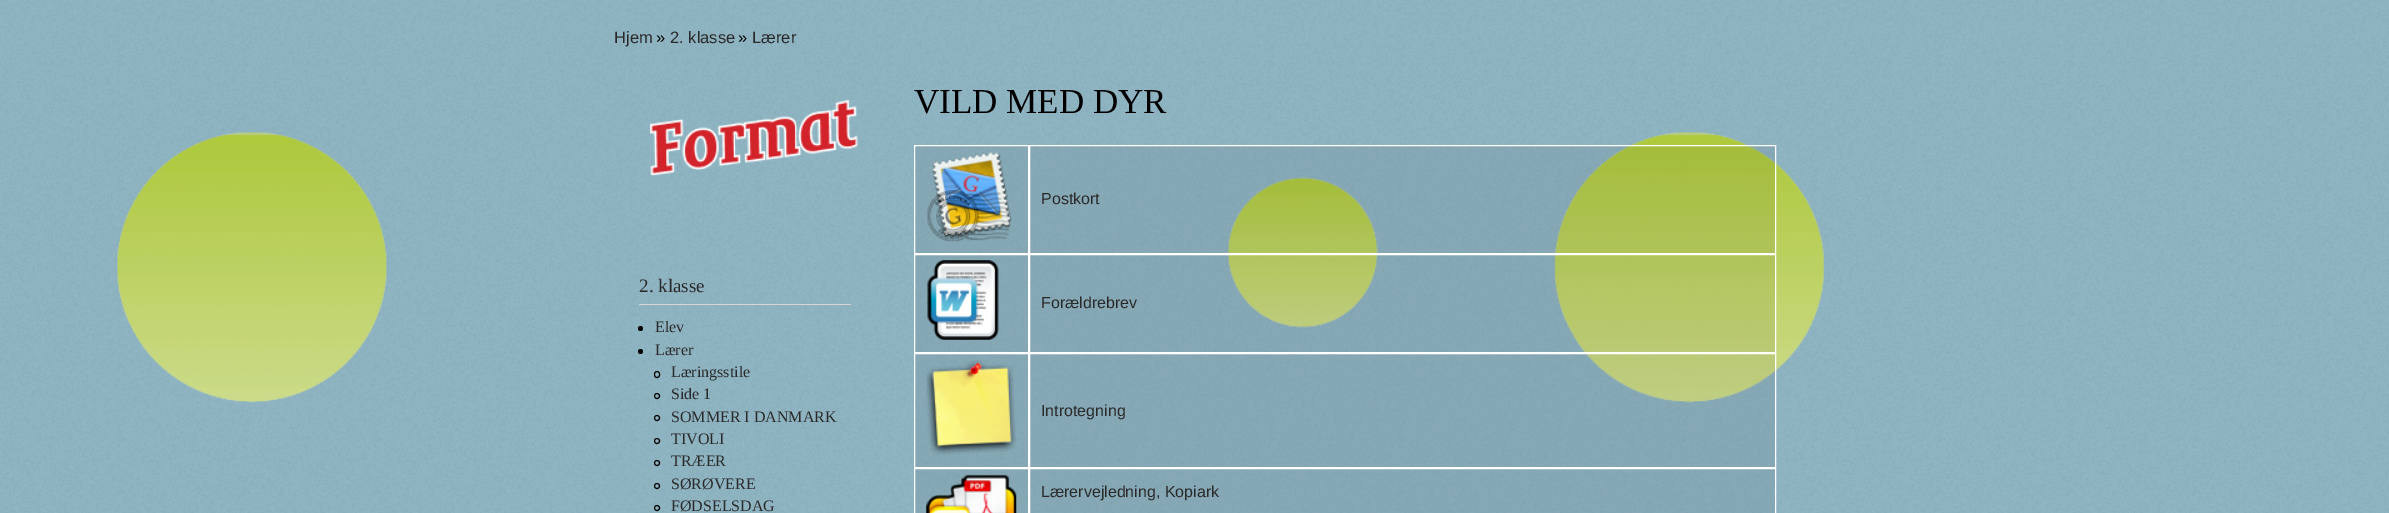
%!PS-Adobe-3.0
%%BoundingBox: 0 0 2389 513
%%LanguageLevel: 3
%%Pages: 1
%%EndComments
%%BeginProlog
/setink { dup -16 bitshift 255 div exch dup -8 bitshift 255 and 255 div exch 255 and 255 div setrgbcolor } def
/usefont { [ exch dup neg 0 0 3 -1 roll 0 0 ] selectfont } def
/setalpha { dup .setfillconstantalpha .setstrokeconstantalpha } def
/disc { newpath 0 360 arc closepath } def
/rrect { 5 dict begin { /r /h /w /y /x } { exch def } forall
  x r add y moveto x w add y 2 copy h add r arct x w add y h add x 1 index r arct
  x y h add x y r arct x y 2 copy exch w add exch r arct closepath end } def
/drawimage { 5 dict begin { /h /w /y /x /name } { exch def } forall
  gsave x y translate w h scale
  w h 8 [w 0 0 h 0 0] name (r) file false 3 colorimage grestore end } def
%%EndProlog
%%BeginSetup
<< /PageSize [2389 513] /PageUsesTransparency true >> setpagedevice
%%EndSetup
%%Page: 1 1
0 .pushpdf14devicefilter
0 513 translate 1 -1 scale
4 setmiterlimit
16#FFFFFF setink
0 0 2389 513 rectfill
(img1.raw) 0 0 2389 513 drawimage
/LiberationSans-Regular 16.5 usefont
16#292929 setink
614 43 moveto (Hjem) show
16#000000 setink
656 43 moveto (») show
16#292929 setink
670 43 moveto (2. klasse) show
16#000000 setink
738 43 moveto (») show
16#292929 setink
752 43 moveto (Lærer) show
(img2.raw) 649 99 209 77 drawimage
16#D6D6D6 setink
639 304 212 1 rectfill
/LiberationSerif-Regular 19 usefont
16#292929 setink
639 292 moveto (2. klasse) show
16#000000 setink
640.5 328.5 2.5 disc fill
/LiberationSerif-Regular 16 usefont
16#292929 setink
655 332 moveto (Elev) show
16#000000 setink
640.5 351.5 2.5 disc fill
16#292929 setink
655 355 moveto (Lærer) show
16#000000 setink
654.5 371.5 5 6 2.5 rrect stroke
16#292929 setink
671 377 moveto (Læringsstile) show
16#000000 setink
657 396 2.5 disc stroke
16#292929 setink
671 399 moveto (Side 1) show
16#000000 setink
657 418 2.5 disc stroke
16#292929 setink
671 422 moveto (SOMMER I DANMARK) show
16#000000 setink
657 441 2.5 disc stroke
16#292929 setink
671 444 moveto (TIVOLI) show
16#000000 setink
657 463 2.5 disc stroke
16#292929 setink
671 466 moveto (TRÆER) show
16#000000 setink
657 486 2.5 disc stroke
16#292929 setink
671 489 moveto (SØRØVERE) show
16#000000 setink
657 508 2.5 disc stroke
16#292929 setink
671 511 moveto (FØDSELSDAG) show
/LiberationSerif-Regular 35 usefont
16#000000 setink
914 113 moveto (VILD MED DYR) show
0.06 setalpha
915 146 860 107 rectfill
1 setalpha
16#FFFFFF setink
914.5 145.5 114 108 rectstroke
(img3.raw) 926 152 86 90 drawimage
1029.5 145.5 746 108 rectstroke
/LiberationSans-Regular 16 usefont
16#292929 setink
1041 204 moveto (Postkort) show
0.06 setalpha
16#000000 setink
915 255 860 97 rectfill
1 setalpha
16#FFFFFF setink
914.5 254.5 114 98 rectstroke
(img4.raw) 927 260 72 80 drawimage
1029.5 254.5 746 98 rectstroke
16#292929 setink
1041 308 moveto (Forældrebrev) show
0.06 setalpha
16#000000 setink
915 354 860 113 rectfill
1 setalpha
16#FFFFFF setink
914.5 353.5 114 114 rectstroke
(img5.raw) 926 360 90 95 drawimage
1029.5 353.5 746 114 rectstroke
16#292929 setink
1041 416 moveto (Introtegning) show
0.06 setalpha
16#000000 setink
915 469 860 44 rectfill
1 setalpha
16#FFFFFF setink
914.5 468.5 114 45 rectstroke
(img6.raw) 926 474 91 39 drawimage
1029.5 468.5 746 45 rectstroke
16#292929 setink
1041 497 moveto (Lærervejledning, Kopiark) show
.poppdf14devicefilter showpage
%%EOF
